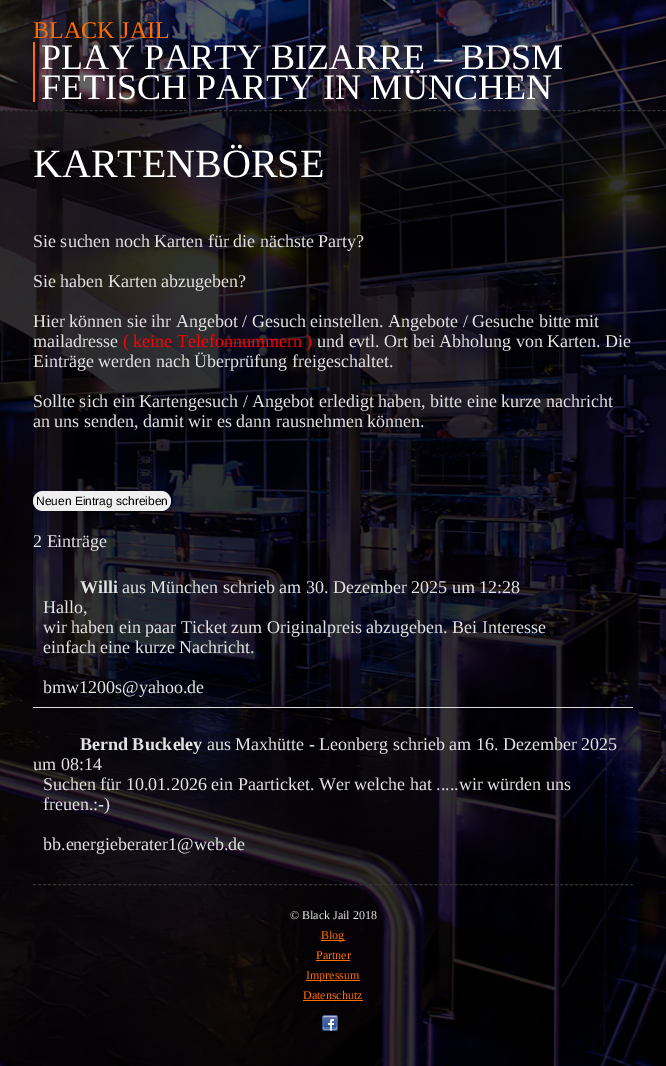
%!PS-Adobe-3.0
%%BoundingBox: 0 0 666 1066
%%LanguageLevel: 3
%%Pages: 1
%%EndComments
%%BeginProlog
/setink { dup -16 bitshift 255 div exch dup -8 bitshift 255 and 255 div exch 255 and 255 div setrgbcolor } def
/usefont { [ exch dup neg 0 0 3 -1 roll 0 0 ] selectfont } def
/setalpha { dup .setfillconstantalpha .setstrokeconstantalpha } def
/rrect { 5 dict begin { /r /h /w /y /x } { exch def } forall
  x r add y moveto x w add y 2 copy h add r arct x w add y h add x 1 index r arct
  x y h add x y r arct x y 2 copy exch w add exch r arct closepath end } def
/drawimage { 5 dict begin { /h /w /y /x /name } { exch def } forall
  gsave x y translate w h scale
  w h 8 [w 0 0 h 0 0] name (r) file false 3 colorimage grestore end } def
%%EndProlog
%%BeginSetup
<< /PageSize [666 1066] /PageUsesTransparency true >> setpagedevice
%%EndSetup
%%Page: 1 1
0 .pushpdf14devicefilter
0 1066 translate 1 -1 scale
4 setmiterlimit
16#FFFFFF setink
0 0 666 1066 rectfill
(img1.raw) 0 0 666 1066 drawimage
0.6 setalpha
16#000000 setink
0 0 666 110 rectfill
/LiberationSerif-Regular 24 usefont
1 setalpha
16#FF6C00 setink
33 38 moveto (BLACK JAIL) show
33 42 2 60 rectfill
/LiberationSerif-Regular 36 usefont
16#FFFFFF setink
41 69 moveto (PLAY PARTY BIZARRE – BDSM) show
41 99 moveto (FETISCH PARTY IN MÜNCHEN) show
0.8 setalpha
16#000000 setink
0 110 666 956 rectfill
1 setalpha
16#333333 setink
[3 1.98] 0 setdash
0 110.5 moveto 666 110.5 lineto stroke
/LiberationSerif-Regular 40 usefont
16#FFFFFF setink
33 177 moveto (KARTENBÖRSE) show
/LiberationSerif-Regular 18 usefont
16#E3E3E3 setink
[
    [(Sie suchen noch Karten für die nächste Party?) 33 247]
    [(Sie haben Karten abzugeben?) 33 287]
    [(Hier können sie ihr Angebot / Gesuch einstellen. Angebote / Gesuche bitte mit) 33 327]
    [(mailadresse) 33 347]
] { aload pop moveto show } forall
16#FF0000 setink
123 347 moveto (\( keine Telefonnummern \)) show
16#E3E3E3 setink
[
    [(und evtl. Ort bei Abholung von Karten. Die) 317 347]
    [(Einträge werden nach Überprüfung freigeschaltet.) 33 367]
    [(Sollte sich ein Kartengesuch / Angebot erledigt haben, bitte eine kurze nachricht) 33 407]
    [(an uns senden, damit wir es dann rausnehmen können.) 33 427]
] { aload pop moveto show } forall
16#EFEFEF setink
33 491 138 20 10 rrect fill
/LiberationSans-Regular 12 usefont
16#000000 setink
36 505 moveto (Neuen Eintrag schreiben) show
/LiberationSerif-Regular 18 usefont
16#E3E3E3 setink
33 547 moveto (2 Einträge) show
/LiberationSerif-Bold 18 usefont
80 593 moveto (Willi) show
/LiberationSerif-Regular 18 usefont
[
    [(aus München schrieb am 30. Dezember 2025 um 12:28) 122 593]
    [(Hallo,) 43 613]
    [(wir haben ein paar Ticket zum Originalpreis abzugeben. Bei Interesse) 43 633]
    [(einfach eine kurze Nachricht.) 43 653]
    [(bmw1200s@yahoo.de) 43 693]
] { aload pop moveto show } forall
16#DDDDDD setink
33 707 600 1 rectfill
/LiberationSerif-Bold 18 usefont
16#E3E3E3 setink
80 750 moveto (Bernd Buckeley) show
/LiberationSerif-Regular 18 usefont
[
    [(aus Maxhütte - Leonberg schrieb am 16. Dezember 2025) 207 750]
    [(um 08:14) 33 770]
    [(Suchen für 10.01.2026 ein Paarticket. Wer welche hat .....wir würden uns) 43 790]
    [(freuen.:-\)) 43 810]
    [(bb.energieberater1@web.de) 43 850]
] { aload pop moveto show } forall
16#333333 setink
[3 2.02] 0 setdash
33 884.5 moveto 633 884.5 lineto stroke
/LiberationSerif-Regular 12 usefont
16#E3E3E3 setink
290 919 moveto (© Black Jail 2018) show
16#FF6C00 setink
321 940 24 1 rectfill
321 939 moveto (Blog) show
316 959 moveto (Partner) show
316 960 34 1 rectfill
306 980 54 1 rectfill
306 979 moveto (Impressum) show
303 999 moveto (Datenschutz) show
303 1000 60 1 rectfill
(img2.raw) 322 1015 16 16 drawimage
.poppdf14devicefilter showpage
%%EOF
